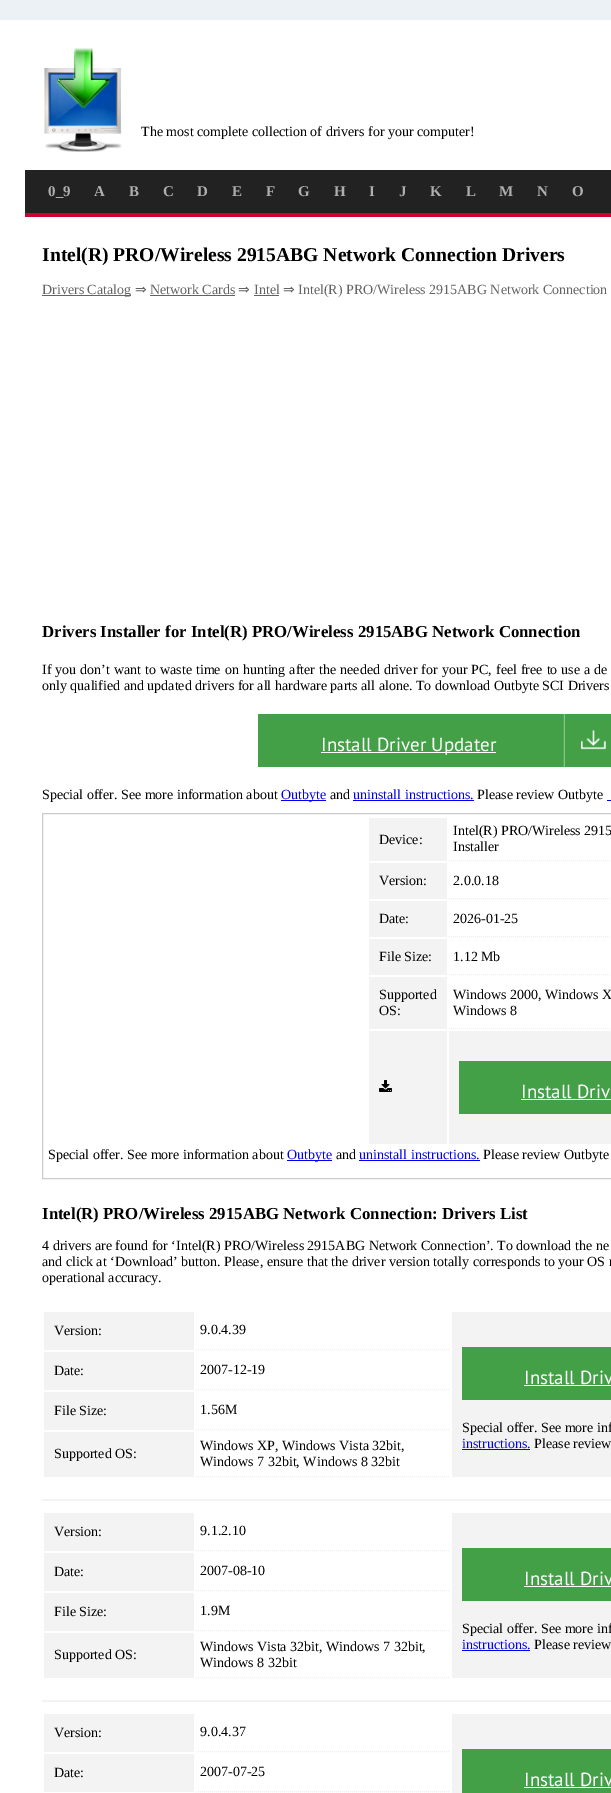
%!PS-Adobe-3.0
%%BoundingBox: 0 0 611 1793
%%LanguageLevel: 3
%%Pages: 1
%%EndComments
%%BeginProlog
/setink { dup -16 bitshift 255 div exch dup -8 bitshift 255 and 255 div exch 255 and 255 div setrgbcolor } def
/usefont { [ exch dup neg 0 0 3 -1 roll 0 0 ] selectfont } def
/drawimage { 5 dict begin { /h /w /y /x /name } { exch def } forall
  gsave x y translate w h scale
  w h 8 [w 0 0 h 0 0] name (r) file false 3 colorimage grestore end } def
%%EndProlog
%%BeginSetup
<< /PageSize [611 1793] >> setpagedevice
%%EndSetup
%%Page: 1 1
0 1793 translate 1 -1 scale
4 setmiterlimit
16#EBF1F4 setink
0 0 611 1793 rectfill
16#FFFFFF setink
0 20 611 1773 rectfill
(img1.raw) 44 48 78 104 drawimage
/LiberationSerif-Regular 14 usefont
16#000000 setink
141 136 moveto (The most complete collection of drivers for your computer!) show
16#222222 setink
25 170 586 43 rectfill
16#CC0033 setink
25 213 586 4 rectfill
/LiberationSerif-Bold 15 usefont
16#AFAFAF setink
[
    [(0_9) 48 196]
    [(A) 94 196]
    [(B) 129 196]
    [(C) 163 196]
    [(D) 197 196]
    [(E) 232 196]
    [(F) 266 196]
    [(G) 298 196]
    [(H) 334 196]
    [(I) 369 196]
    [(J) 399 196]
    [(K) 430 196]
    [(L) 466 196]
    [(M) 499 196]
    [(N) 537 196]
    [(O) 572 196]
] { aload pop moveto show } forall
/LiberationSerif-Bold 19.6 usefont
16#000000 setink
42 261 moveto (Intel\(R\) PRO/Wireless 2915ABG Network Connection Drivers) show
16#636363 setink
42 295 89 1 rectfill
/LiberationSerif-Regular 14 usefont
42 294 moveto (Drivers Catalog) show
/DejaVuSans-Regular 14 usefont
135 294 moveto (⇒) show
/LiberationSerif-Regular 14 usefont
150 294 moveto (Network Cards) show
150 295 85 1 rectfill
/DejaVuSans-Regular 14 usefont
238 294 moveto (⇒) show
/LiberationSerif-Regular 14 usefont
254 294 moveto (Intel) show
254 295 25 1 rectfill
/DejaVuSans-Regular 14 usefont
283 294 moveto (⇒) show
/LiberationSerif-Regular 14 usefont
298 294 moveto (Intel\(R\) PRO/Wireless 2915ABG Network Connection) show
/LiberationSerif-Bold 16.8 usefont
16#000000 setink
42 637 moveto (Drivers Installer for Intel\(R\) PRO/Wireless 2915ABG Network Connection) show
/LiberationSerif-Regular 14 usefont
42 674 moveto 0.5 0 32 (If you don’t want to waste time on hunting after the needed driver for your PC, feel free to use a de) widthshow
42 690 moveto (only qualified and updated drivers for all hardware parts all alone. To download Outbyte SCI Drivers) show
(img2.raw) 258 714 353 53 drawimage
16#FFFFFF setink
321 752 175 1 rectfill
/PTSans-Regular 19 usefont
321 751 moveto (Install Driver Updater) show
/LiberationSerif-Regular 14 usefont
16#000000 setink
42 799 moveto (Special offer. See more information about) show
16#0000EE setink
281 800 45 1 rectfill
281 799 moveto (Outbyte) show
16#000000 setink
330 799 moveto (and) show
16#0000EE setink
353 799 moveto (uninstall instructions.) show
353 800 121 1 rectfill
16#000000 setink
477 799 moveto (Please review Outbyte) show
16#0000EE setink
607 800 4 1 rectfill
16#CCCCCC setink
42.5 813.5 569 365 rectstroke
16#F3F3F3 setink
369 818 78 43 rectfill
16#000000 setink
379 844 moveto (Device:) show
16#EEEEEE setink
[1 1] 0 setdash
449 860.5 moveto 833 860.5 lineto stroke
16#000000 setink
453 835 moveto (Intel\(R\) PRO/Wireless 2915) show
453 851 moveto (Installer) show
16#F3F3F3 setink
369 863 78 36 rectfill
16#000000 setink
379 885 moveto (Version:) show
16#EEEEEE setink
449 898.5 moveto 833 898.5 lineto stroke
16#000000 setink
453 885 moveto (2.0.0.18) show
16#F3F3F3 setink
369 901 78 36 rectfill
16#000000 setink
379 923 moveto (Date:) show
16#EEEEEE setink
449 936.5 moveto 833 936.5 lineto stroke
16#000000 setink
453 923 moveto (2026-01-25) show
16#F3F3F3 setink
369 939 78 36 rectfill
16#000000 setink
379 961 moveto (File Size:) show
16#EEEEEE setink
449 974.5 moveto 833 974.5 lineto stroke
16#000000 setink
453 961 moveto (1.12 Mb) show
16#F3F3F3 setink
369 977 78 52 rectfill
16#000000 setink
379 999 moveto (Supported) show
379 1015 moveto (OS:) show
16#EEEEEE setink
449 1028.5 moveto 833 1028.5 lineto stroke
16#000000 setink
453 999 moveto (Windows 2000, Windows X) show
453 1015 moveto (Windows 8) show
16#F3F3F3 setink
369 1031 78 113 rectfill
(img3.raw) 379 1080 13 12 drawimage
449 1031 162 113 rectfill
16#43A047 setink
459 1061 152 53 rectfill
/PTSans-Regular 19 usefont
16#FFFFFF setink
521 1098 moveto (Install Driv) show
521 1099 90 1 rectfill
/LiberationSerif-Regular 14 usefont
16#000000 setink
48 1159 moveto (Special offer. See more information about) show
16#0000EE setink
287 1160 45 1 rectfill
287 1159 moveto (Outbyte) show
16#000000 setink
336 1159 moveto (and) show
16#0000EE setink
359 1159 moveto (uninstall instructions.) show
359 1160 121 1 rectfill
16#000000 setink
483 1159 moveto (Please review Outbyte) show
/LiberationSerif-Bold 16.8 usefont
42 1219 moveto (Intel\(R\) PRO/Wireless 2915ABG Network Connection: Drivers List) show
/LiberationSerif-Regular 14 usefont
[
    [(4 drivers are found for ‘Intel\(R\) PRO/Wireless 2915ABG Network Connection’. To download the ne) 42 1250]
    [(and click at ‘Download’ button. Please, ensure that the driver version totally corresponds to your OS r) 42 1266]
    [(operational accuracy.) 42 1282]
] { aload pop moveto show } forall
16#F3F3F3 setink
42 1499 569 2 rectfill
44 1312 150 38 rectfill
16#000000 setink
54 1335 moveto (Version:) show
16#EEEEEE setink
196 1349.5 moveto 450 1349.5 lineto stroke
16#000000 setink
200 1334 moveto (9.0.4.39) show
16#F3F3F3 setink
452 1312 159 165 rectfill
16#43A047 setink
462 1347 149 53 rectfill
/PTSans-Regular 19 usefont
16#FFFFFF setink
524 1384 moveto (Install Driv) show
524 1385 87 1 rectfill
/LiberationSerif-Regular 14 usefont
16#000000 setink
462 1432 moveto (Special offer. See more inf) show
16#0000EE setink
462 1448 moveto (instructions.) show
462 1449 68 1 rectfill
16#000000 setink
534 1448 moveto (Please review) show
16#F3F3F3 setink
44 1352 150 38 rectfill
16#000000 setink
54 1375 moveto (Date:) show
16#EEEEEE setink
196 1389.5 moveto 450 1389.5 lineto stroke
16#000000 setink
200 1374 moveto (2007-12-19) show
16#F3F3F3 setink
44 1392 150 38 rectfill
16#000000 setink
54 1415 moveto (File Size:) show
16#EEEEEE setink
196 1429.5 moveto 450 1429.5 lineto stroke
16#000000 setink
200 1414 moveto (1.56M) show
16#F3F3F3 setink
44 1432 150 45 rectfill
16#000000 setink
54 1458 moveto (Supported OS:) show
16#EEEEEE setink
196 1476.5 moveto 450 1476.5 lineto stroke
16#000000 setink
200 1450 moveto (Windows XP, Windows Vista 32bit,) show
200 1466 moveto (Windows 7 32bit, Windows 8 32bit) show
16#F3F3F3 setink
42 1700 569 2 rectfill
44 1513 150 38 rectfill
16#000000 setink
54 1536 moveto (Version:) show
16#EEEEEE setink
196 1550.5 moveto 450 1550.5 lineto stroke
16#000000 setink
200 1535 moveto (9.1.2.10) show
16#F3F3F3 setink
452 1513 159 165 rectfill
16#43A047 setink
462 1548 149 53 rectfill
/PTSans-Regular 19 usefont
16#FFFFFF setink
524 1585 moveto (Install Driv) show
524 1586 87 1 rectfill
/LiberationSerif-Regular 14 usefont
16#000000 setink
462 1633 moveto (Special offer. See more inf) show
16#0000EE setink
462 1649 moveto (instructions.) show
462 1650 68 1 rectfill
16#000000 setink
534 1649 moveto (Please review) show
16#F3F3F3 setink
44 1553 150 38 rectfill
16#000000 setink
54 1576 moveto (Date:) show
16#EEEEEE setink
196 1590.5 moveto 450 1590.5 lineto stroke
16#000000 setink
200 1575 moveto (2007-08-10) show
16#F3F3F3 setink
44 1593 150 38 rectfill
16#000000 setink
54 1616 moveto (File Size:) show
16#EEEEEE setink
196 1630.5 moveto 450 1630.5 lineto stroke
16#000000 setink
200 1615 moveto (1.9M) show
16#F3F3F3 setink
44 1633 150 45 rectfill
16#000000 setink
54 1659 moveto (Supported OS:) show
16#EEEEEE setink
196 1677.5 moveto 450 1677.5 lineto stroke
16#000000 setink
200 1651 moveto (Windows Vista 32bit, Windows 7 32bit,) show
200 1667 moveto (Windows 8 32bit) show
16#F3F3F3 setink
44 1714 150 38 rectfill
16#000000 setink
54 1737 moveto (Version:) show
16#EEEEEE setink
196 1751.5 moveto 450 1751.5 lineto stroke
16#000000 setink
200 1736 moveto (9.0.4.37) show
16#F3F3F3 setink
452 1714 159 79 rectfill
16#43A047 setink
462 1749 149 44 rectfill
/PTSans-Regular 19 usefont
16#FFFFFF setink
524 1786 moveto (Install Driv) show
524 1787 87 1 rectfill
16#F3F3F3 setink
44 1754 150 38 rectfill
/LiberationSerif-Regular 14 usefont
16#000000 setink
54 1777 moveto (Date:) show
16#EEEEEE setink
196 1791.5 moveto 450 1791.5 lineto stroke
16#000000 setink
200 1776 moveto (2007-07-25) show
showpage
%%EOF
